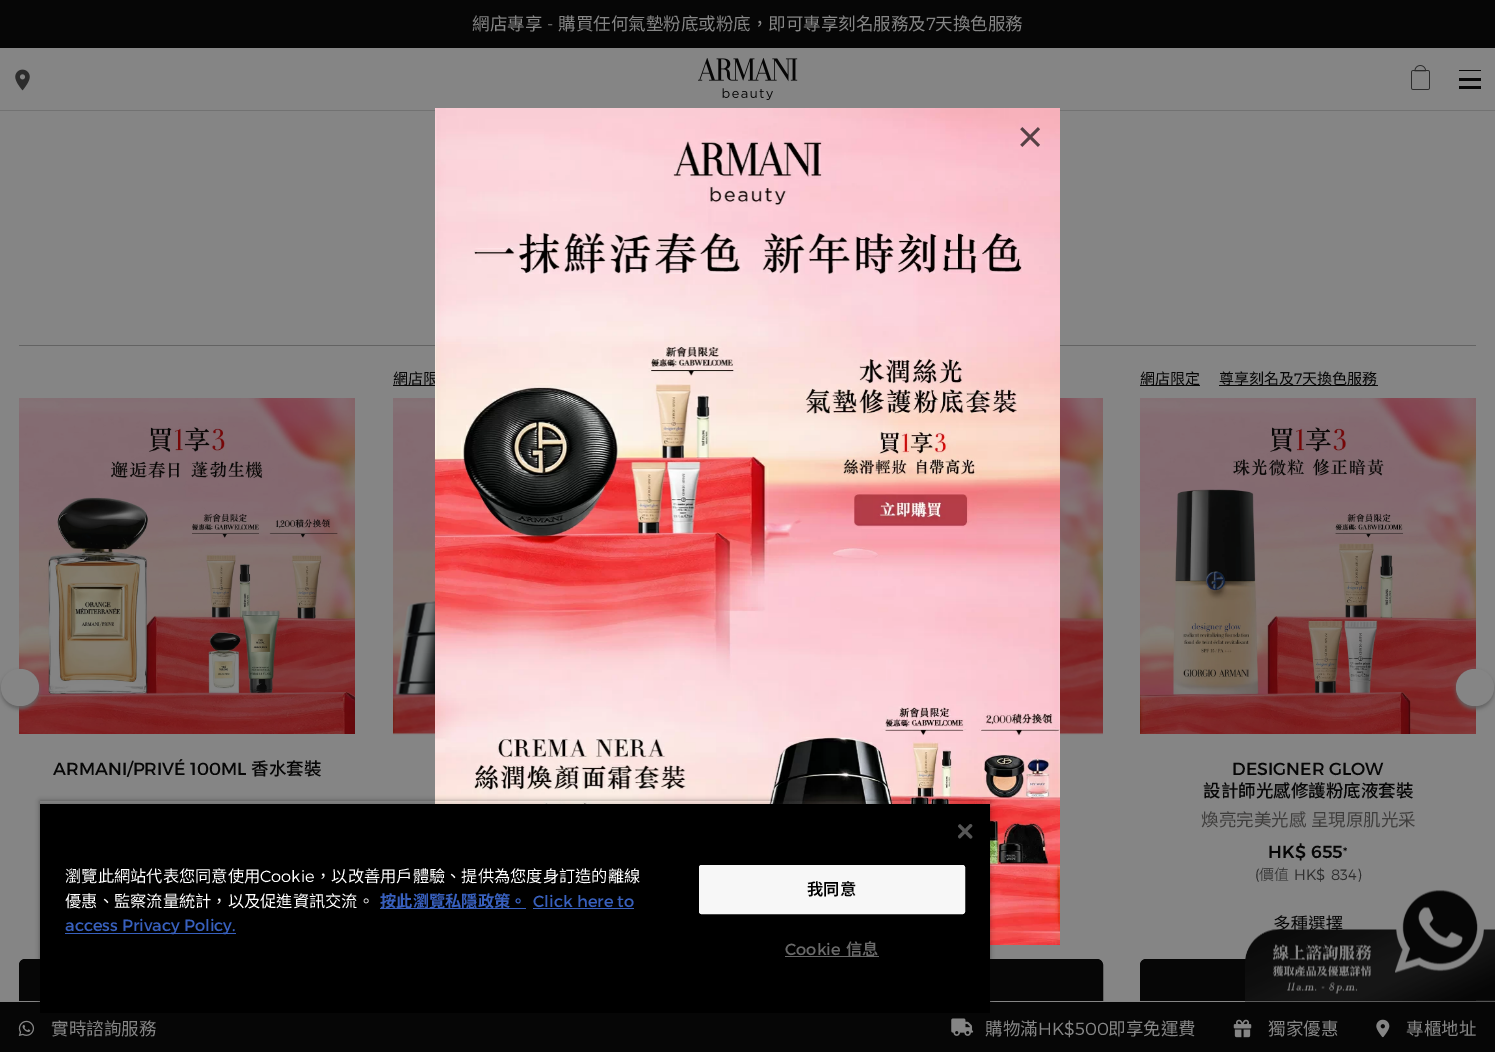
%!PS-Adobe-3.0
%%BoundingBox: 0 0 1495 1052
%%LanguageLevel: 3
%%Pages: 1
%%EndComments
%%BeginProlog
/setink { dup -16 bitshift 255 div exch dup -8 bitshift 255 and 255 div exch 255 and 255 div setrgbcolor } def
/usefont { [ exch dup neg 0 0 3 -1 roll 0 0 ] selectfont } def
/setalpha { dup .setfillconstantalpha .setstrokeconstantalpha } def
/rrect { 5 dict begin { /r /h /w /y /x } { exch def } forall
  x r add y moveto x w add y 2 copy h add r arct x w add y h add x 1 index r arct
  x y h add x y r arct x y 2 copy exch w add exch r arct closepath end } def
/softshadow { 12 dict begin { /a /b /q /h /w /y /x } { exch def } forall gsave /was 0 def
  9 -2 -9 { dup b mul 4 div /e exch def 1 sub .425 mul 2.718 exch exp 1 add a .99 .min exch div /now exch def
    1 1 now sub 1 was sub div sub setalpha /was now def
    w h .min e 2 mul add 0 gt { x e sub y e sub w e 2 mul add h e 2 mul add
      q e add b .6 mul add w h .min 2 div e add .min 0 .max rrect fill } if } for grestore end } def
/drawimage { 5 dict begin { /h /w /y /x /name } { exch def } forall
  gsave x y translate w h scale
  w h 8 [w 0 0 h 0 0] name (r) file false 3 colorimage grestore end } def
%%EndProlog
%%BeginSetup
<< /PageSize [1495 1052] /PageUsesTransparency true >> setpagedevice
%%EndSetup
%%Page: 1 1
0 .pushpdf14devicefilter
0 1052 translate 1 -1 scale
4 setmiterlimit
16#858585 setink
0 0 1495 1052 rectfill
16#060606 setink
0 0 1495 48 rectfill
/NotoSansTC-Regular 17.5 usefont
16#858585 setink
472 30 moveto (網店專享) show
/Montserrat-Light 17.5 usefont
547 30 moveto (-) show
/NotoSansTC-Regular 17.5 usefont
558 30 moveto (購買任何氣墊粉底或粉底，即可專享刻名服務及) show
/Montserrat-Light 17.5 usefont
926 30 moveto (7) show
/NotoSansTC-Regular 17.5 usefont
935 30 moveto (天換色服務) show
16#727272 setink
0 110 1495 1 rectfill
(img1.raw) 698 58 100 42 drawimage
(img2.raw) 1411 65 19 25 drawimage
(img3.raw) 15 69 15 22 drawimage
[
    [1459 70 22 1 16#060606]
    [1459 78 22 3 16#060606]
    [1459 86 22 3 16#060606]
    [19 345 1457 1 16#636363]
] { aload pop setink rectfill } forall
(img4.raw) 19 398 336 336 drawimage
1 671 38 38 19 2 1 softshadow
16#858585 setink
1 669 38 37 18.5 rrect fill
/Montserrat-Regular 17.5 usefont
16#060606 setink
53 775 moveto (ARMANI/PRIVÉ 100ML) show
/NotoSansTC-Medium 17.5 usefont
251 775 moveto (香水套裝) show
19.5 959.5 335 49 5.5 rrect gsave fill grestore
stroke
393 385 42 1 rectfill
/NotoSansTC-Regular 15 usefont
393 384 moveto (網店限) show
(img5.raw) 393 398 42 337 drawimage
(img6.raw) 1060 398 43 337 drawimage
766.5 959.5 336 49 5.5 rrect gsave fill grestore
stroke
1140 385 60 1 rectfill
1140 384 moveto (網店限定) show
1219 385 159 1 rectfill
1219 384 moveto (尊享刻名及) show
/Montserrat-Light 15 usefont
1294 384 moveto (7) show
/NotoSansTC-Regular 15 usefont
1302 384 moveto (天換色服務) show
(img7.raw) 1140 398 336 336 drawimage
/Montserrat-Regular 17.5 usefont
1232 775 moveto (DESIGNER GLOW) show
/NotoSansTC-Medium 17.5 usefont
1203 797 moveto (設計師光感修護粉底液套裝) show
/NotoSansTC-Regular 17.5 usefont
16#3F3E3D setink
1201 826 moveto 1 0 32 (煥亮完美光感 呈現原肌光采) widthshow
/Montserrat-Medium 17.5 usefont
16#060606 setink
1268 858 moveto (HK$ 655) show
/Montserrat-Medium 12 usefont
1343 856 moveto (*) show
/Montserrat-Light 15 usefont
16#2D2D2D setink
1255 880 moveto (\() show
/NotoSansTC-Light 15 usefont
1259 880 moveto (價值) show
/Montserrat-Light 15 usefont
1294 880 moveto (HK$) show
1331 880 moveto (834\)) show
/NotoSansTC-Regular 17.5 usefont
16#060606 setink
1273 930 moveto (多種選擇) show
1140.5 959.5 335 49 5.5 rrect gsave fill grestore
stroke
16#636363 setink
1456 671 38 38 19 2 1 softshadow
16#858585 setink
1456 669 38 37 18.5 rrect fill
(img8.raw) 435 108 625 837 drawimage
/LiberationSans-Regular 45 usefont
16#574045 setink
1017 152 moveto (×) show
16#060606 setink
0 1002 1495 50 rectfill
16#858585 setink
19 1001 1457 1 rectfill
(img11.raw) 18 1020 17 16 drawimage
(img12.raw) 951 1018 23 18 drawimage
gsave
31 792 moveto 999 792 lineto 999 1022 lineto 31 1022 lineto closepath 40 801 moveto 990 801 lineto 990 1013 lineto 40 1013 lineto closepath eoclip newpath
16#000000 setink
40 801 950 212 0 2.5 0.35 softshadow
grestore
gsave
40 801 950 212 rectclip
16#000000 setink
40 804 950 209 0 2.5 0.2 softshadow
grestore
16#000000 setink
40 804 950 209 rectfill
(img9.raw) 958 824 15 15 drawimage
/NotoSansTC-Regular 16.25 usefont
16#FFFFFF setink
65 882 moveto (瀏覽此網站代表您同意使用) show
/Montserrat-Light 16.25 usefont
260 882 moveto (Cookie) show
/NotoSansTC-Regular 16.25 usefont
315 882 moveto (，以改善用戶體驗、提供為您度身訂造的離線) show
65 907 moveto (優惠、監察流量統計，以及促進資訊交流。) show
16#3860BE setink
380 908 146 1 rectfill
/NotoSansTC-Bold 16.25 usefont
380 907 moveto (按此瀏覽私隱政策。) show
/Montserrat-Regular 16.25 usefont
533 907 moveto (Click here to) show
533 908 101 1 rectfill
65 933 171 1 rectfill
65 931 moveto (access Privacy Policy.) show
16#F7F7F7 setink
699.5 865.5 265 48 2 rrect gsave fill grestore
stroke
/NotoSansTC-SemiBold 16.25 usefont
16#000000 setink
807 895 moveto (我同意) show
/Montserrat-Regular 16.25 usefont
16#696969 setink
785 955 moveto (Cookie) show
785 956 94 1 rectfill
/NotoSansTC-SemiBold 16.25 usefont
846 955 moveto (信息) show
(img10.raw) 1245 890 250 112 drawimage
/NotoSansTC-Regular 17.5 usefont
16#858585 setink
51 1035 moveto (實時諮詢服務) show
985 1035 moveto (購物滿) show
/Montserrat-Light 17.5 usefont
1038 1035 moveto (HK$500) show
/NotoSansTC-Regular 17.5 usefont
1108 1035 moveto (即享免運費) show
(img13.raw) 1233 1019 19 19 drawimage
1268 1035 moveto (獨家優惠) show
(img14.raw) 1376 1019 14 19 drawimage
1406 1035 moveto (專櫃地址) show
.poppdf14devicefilter showpage
%%EOF
